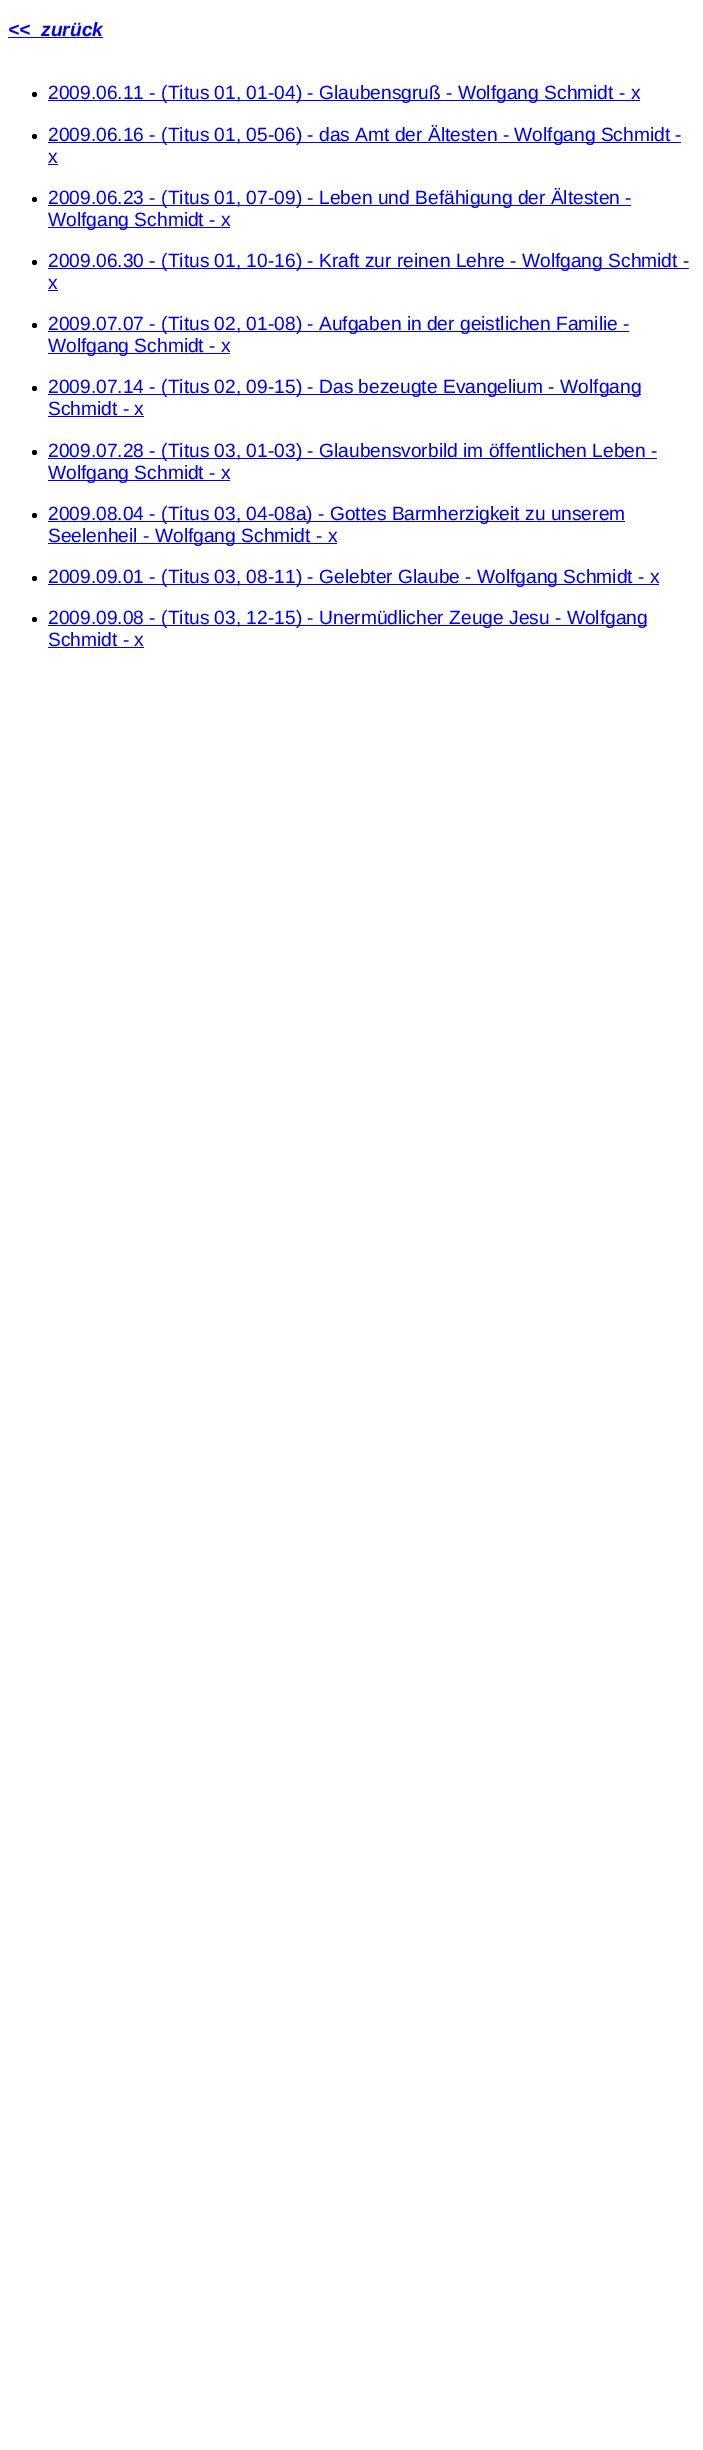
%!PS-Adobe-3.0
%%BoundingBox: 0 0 703 2450
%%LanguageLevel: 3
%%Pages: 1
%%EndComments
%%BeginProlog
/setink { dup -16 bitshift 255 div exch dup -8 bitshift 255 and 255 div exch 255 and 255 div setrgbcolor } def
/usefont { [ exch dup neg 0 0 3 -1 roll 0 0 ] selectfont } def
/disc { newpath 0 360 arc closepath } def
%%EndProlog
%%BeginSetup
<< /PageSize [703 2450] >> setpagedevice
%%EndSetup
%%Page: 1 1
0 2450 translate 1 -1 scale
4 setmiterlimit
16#FFFFFF setink
0 0 703 2450 rectfill
/LiberationSans-BoldItalic 19.2 usefont
16#0000EE setink
8 36 moveto (<<  zurück) show
8 37 95 1 rectfill
16#000000 setink
34.5 94.5 2.5 disc fill
16#0000EE setink
48 100 592 1 rectfill
/LiberationSans-Regular 19.2 usefont
48 99 moveto (2009.06.11 - \(Titus 01, 01-04\) - Glaubensgruß - Wolfgang Schmidt - x) show
16#000000 setink
34.5 136.5 2.5 disc fill
16#0000EE setink
48 142 633 1 rectfill
48 141 moveto (2009.06.16 - \(Titus 01, 05-06\) - das Amt der Ältesten - Wolfgang Schmidt -) show
48 163 moveto (x) show
48 164 10 1 rectfill
16#000000 setink
34.5 199.5 2.5 disc fill
16#0000EE setink
48 205 583 1 rectfill
48 204 moveto (2009.06.23 - \(Titus 01, 07-09\) - Leben und Befähigung der Ältesten -) show
48 227 182 1 rectfill
48 226 moveto (Wolfgang Schmidt - x) show
16#000000 setink
34.5 262.5 2.5 disc fill
16#0000EE setink
48 268 641 1 rectfill
48 267 moveto (2009.06.30 - \(Titus 01, 10-16\) - Kraft zur reinen Lehre - Wolfgang Schmidt -) show
48 289 moveto (x) show
48 290 10 1 rectfill
16#000000 setink
34.5 325.5 2.5 disc fill
16#0000EE setink
48 331 581 1 rectfill
48 330 moveto (2009.07.07 - \(Titus 02, 01-08\) - Aufgaben in der geistlichen Familie -) show
48 353 182 1 rectfill
48 352 moveto (Wolfgang Schmidt - x) show
16#000000 setink
34.5 388.5 2.5 disc fill
16#0000EE setink
48 394 593 1 rectfill
48 393 moveto (2009.07.14 - \(Titus 02, 09-15\) - Das bezeugte Evangelium - Wolfgang) show
48 415 moveto (Schmidt - x) show
48 416 96 1 rectfill
16#000000 setink
34.5 452.5 2.5 disc fill
16#0000EE setink
48 458 609 1 rectfill
48 457 moveto (2009.07.28 - \(Titus 03, 01-03\) - Glaubensvorbild im öffentlichen Leben -) show
48 480 182 1 rectfill
48 479 moveto (Wolfgang Schmidt - x) show
16#000000 setink
34.5 515.5 2.5 disc fill
16#0000EE setink
48 521 577 1 rectfill
48 520 moveto (2009.08.04 - \(Titus 03, 04-08a\) - Gottes Barmherzigkeit zu unserem) show
48 543 289 1 rectfill
48 542 moveto (Seelenheil - Wolfgang Schmidt - x) show
16#000000 setink
34.5 578.5 2.5 disc fill
16#0000EE setink
48 584 611 1 rectfill
48 583 moveto (2009.09.01 - \(Titus 03, 08-11\) - Gelebter Glaube - Wolfgang Schmidt - x) show
16#000000 setink
34.5 619.5 2.5 disc fill
16#0000EE setink
48 625 599 1 rectfill
48 624 moveto (2009.09.08 - \(Titus 03, 12-15\) - Unermüdlicher Zeuge Jesu - Wolfgang) show
48 646 moveto (Schmidt - x) show
48 647 96 1 rectfill
showpage
%%EOF
